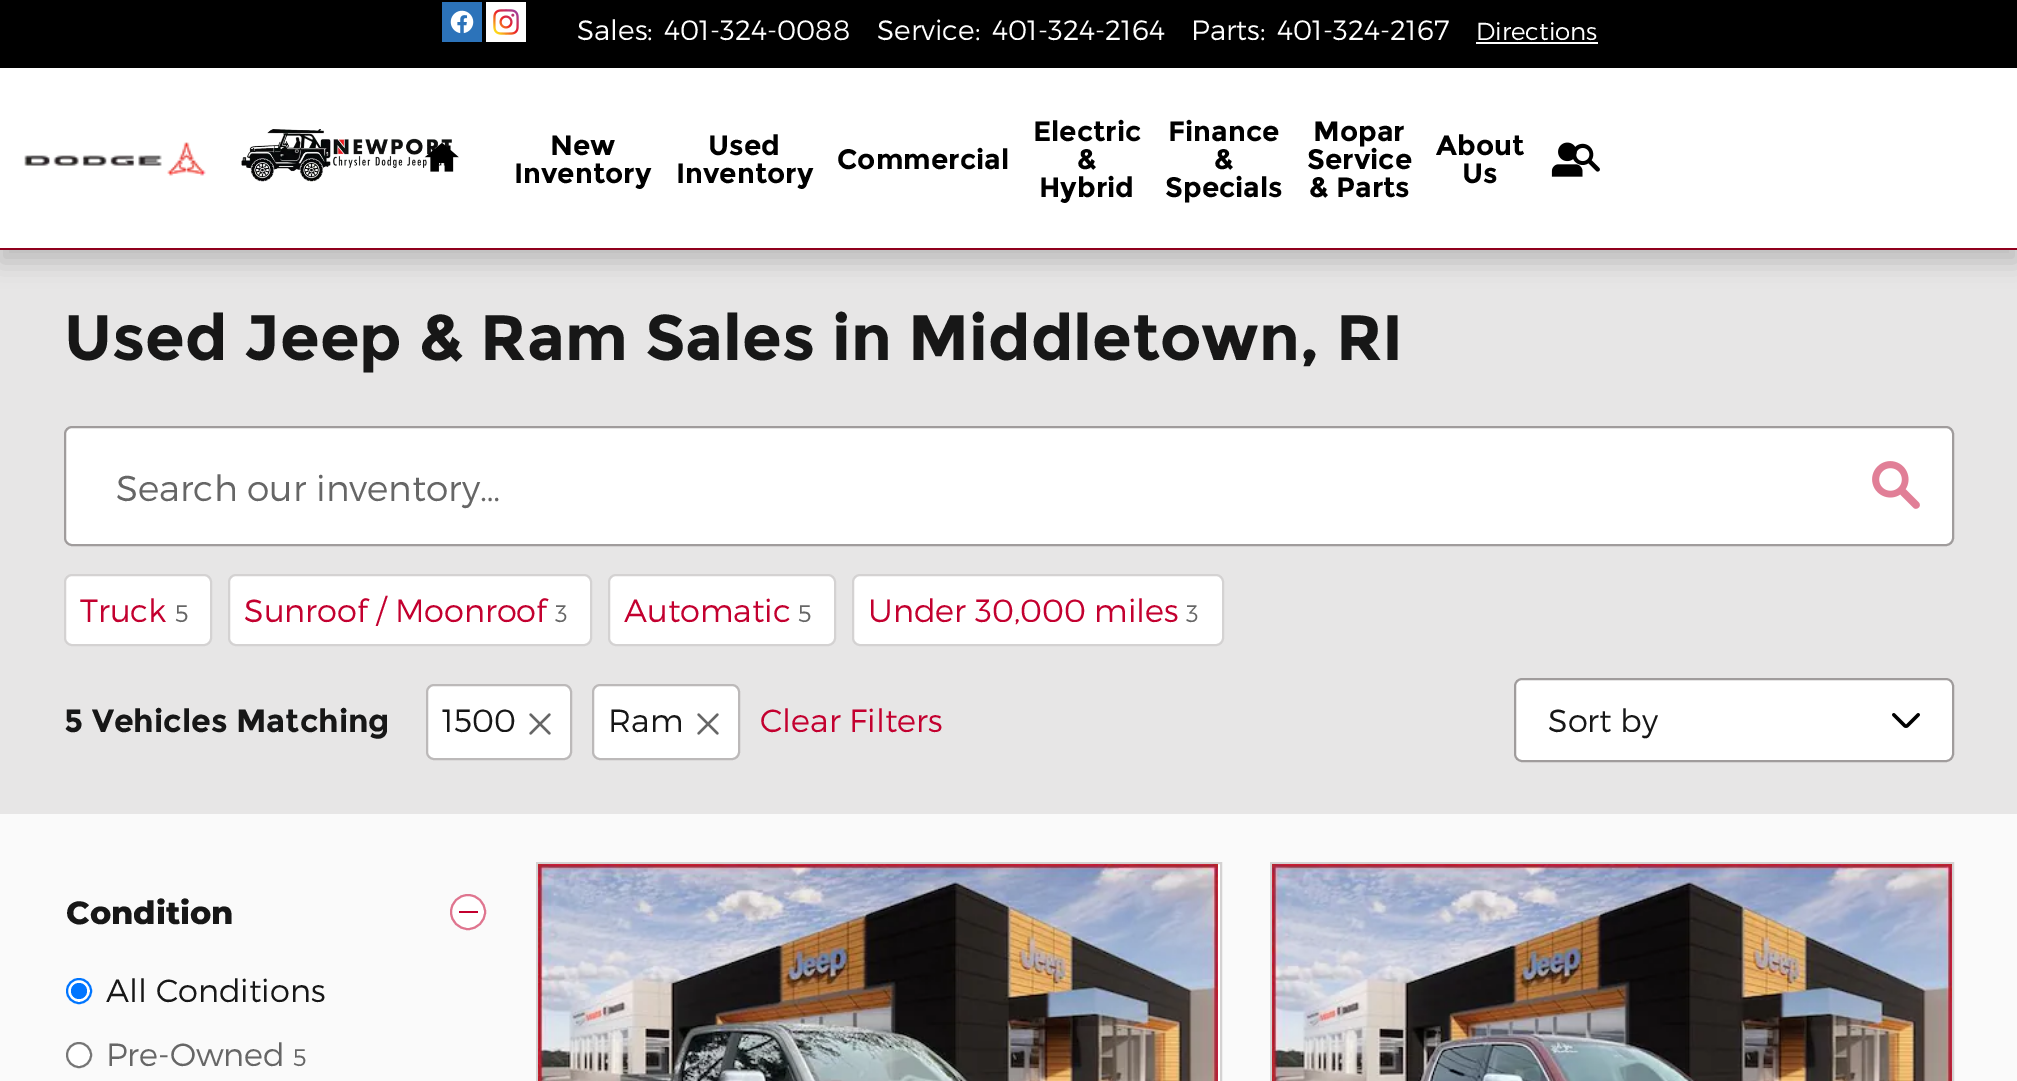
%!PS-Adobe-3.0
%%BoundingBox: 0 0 2017 1081
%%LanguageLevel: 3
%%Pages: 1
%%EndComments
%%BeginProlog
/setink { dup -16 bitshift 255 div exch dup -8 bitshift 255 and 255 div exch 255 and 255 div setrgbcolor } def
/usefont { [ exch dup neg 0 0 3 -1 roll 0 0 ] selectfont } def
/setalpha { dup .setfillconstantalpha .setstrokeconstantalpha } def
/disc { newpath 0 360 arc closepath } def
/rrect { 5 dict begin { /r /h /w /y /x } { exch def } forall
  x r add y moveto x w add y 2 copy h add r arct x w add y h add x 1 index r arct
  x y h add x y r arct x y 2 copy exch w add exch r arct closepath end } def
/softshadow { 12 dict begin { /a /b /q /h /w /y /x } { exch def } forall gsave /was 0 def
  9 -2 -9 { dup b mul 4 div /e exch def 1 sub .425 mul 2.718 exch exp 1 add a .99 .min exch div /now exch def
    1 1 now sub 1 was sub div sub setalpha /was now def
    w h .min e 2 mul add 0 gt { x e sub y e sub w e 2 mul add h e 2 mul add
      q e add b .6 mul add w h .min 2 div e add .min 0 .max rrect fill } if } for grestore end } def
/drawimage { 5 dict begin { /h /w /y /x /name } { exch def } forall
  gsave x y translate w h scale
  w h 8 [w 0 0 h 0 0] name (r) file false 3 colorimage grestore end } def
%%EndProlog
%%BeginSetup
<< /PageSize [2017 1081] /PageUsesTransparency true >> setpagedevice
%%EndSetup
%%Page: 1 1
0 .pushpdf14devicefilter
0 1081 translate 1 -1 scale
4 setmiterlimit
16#FAFAFA setink
0 0 2017 1081 rectfill
16#E7E6E6 setink
0 250 2017 564 rectfill
16#000000 setink
0 12 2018 250 0 12 0.18 softshadow
[
    [0 68 2017 180 16#FFFFFF]
    [0 248 2017 2 16#90001D]
    [0 0 2017 68 16#000000]
] { aload pop setink rectfill } forall
(img1.raw) 442 2 40 40 drawimage
(img2.raw) 486 2 40 40 drawimage
/Montserrat-Light 28 usefont
16#FFFFFF setink
[
    [(Sales:) 577 40]
    [(401-324-0088) 664 40]
    [(Service:) 877 40]
    [(401-324-2164) 992 40]
    [(Parts:) 1191 40]
    [(401-324-2167) 1277 40]
] { aload pop moveto show } forall
/Montserrat-Light 24.5 usefont
1476 40 moveto (Directions) show
1476 42 122 2 rectfill
(img3.raw) 24 142 182 34 drawimage
(img4.raw) 241 129 211 53 drawimage
(img5.raw) 424 142 35 30 drawimage
/Montserrat-Bold 28 usefont
16#000000 setink
[
    [(New) 550 155]
    [(Inventory) 514 183]
    [(Used) 708 155]
    [(Inventory) 676 183]
    [(Commercial) 837 169]
    [(Electric) 1033 141]
    [(&) 1077 169]
    [(Hybrid) 1039 197]
    [(Finance) 1168 141]
    [(&) 1214 169]
    [(Specials) 1165 197]
    [(Mopar) 1313 141]
    [(Service) 1307 169]
    [(& Parts) 1309 197]
    [(About) 1436 155]
    [(Us) 1462 183]
] { aload pop moveto show } forall
(img6.raw) 1573 143 27 29 drawimage
(img7.raw) 1551 142 32 35 drawimage
/Montserrat-Bold 64 usefont
16#171717 setink
64 360 moveto (Used Jeep & Ram Sales in Middletown, RI) show
16#FFFFFF setink
65 427 1888 118 7 rrect gsave fill grestore
16#A09C9C setink
2 setlinewidth
stroke
/Montserrat-Light 36 usefont
16#666666 setink
116 501 moveto (Search our inventory…) show
(img8.raw) 1872 461 48 48 drawimage
16#FFFFFF setink
65 575 146 70 7 rrect gsave fill grestore
16#D4D2D2 setink
stroke
/Montserrat-Light 32 usefont
16#C3002F setink
80 622 moveto (Truck) show
/Montserrat-Light 24 usefont
16#666666 setink
175 622 moveto (5) show
16#FFFFFF setink
229 575 362 70 7 rrect gsave fill grestore
16#D4D2D2 setink
stroke
/Montserrat-Light 32 usefont
16#C3002F setink
244 622 moveto (Sunroof / Moonroof) show
/Montserrat-Light 24 usefont
16#666666 setink
555 622 moveto (3) show
16#FFFFFF setink
609 575 226 70 7 rrect gsave fill grestore
16#D4D2D2 setink
stroke
/Montserrat-Light 32 usefont
16#C3002F setink
624 622 moveto (Automatic) show
/Montserrat-Light 24 usefont
16#666666 setink
798 622 moveto (5) show
16#FFFFFF setink
853 575 370 70 7 rrect gsave fill grestore
16#D4D2D2 setink
stroke
/Montserrat-Light 32 usefont
16#C3002F setink
868 622 moveto (Under 30,000 miles) show
/Montserrat-Light 24 usefont
16#666666 setink
1186 622 moveto (3) show
/Montserrat-Bold 32 usefont
16#171717 setink
64 732 moveto (5 Vehicles Matching) show
16#FFFFFF setink
427 685 144 74 7 rrect gsave fill grestore
16#BCB9B9 setink
stroke
/Montserrat-Light 32 usefont
16#171717 setink
442 732 moveto (1500) show
(img9.raw) 529 713 22 22 drawimage
16#FFFFFF setink
593 685 146 74 7 rrect gsave fill grestore
16#BCB9B9 setink
stroke
16#171717 setink
608 732 moveto (Ram) show
(img9.raw) 697 713 22 22 drawimage
16#C3002F setink
760 732 moveto (Clear Filters) show
16#FFFFFF setink
1514 678 440 84 8 rrect fill
(img10.raw) 1892 713 28 15 drawimage
16#A09C9C setink
1515 679 438 82 7 rrect stroke
16#171717 setink
1548 732 moveto (Sort by) show
/Montserrat-ExtraBold 32 usefont
66 924 moveto (Condition) show
16#FFFFFF setink
468 912 17 disc gsave fill grestore
16#DF758F setink
stroke
16#C3002F setink
459 911 19 2 rectfill
16#FFFFFF setink
79 991 12 disc gsave fill grestore
16#0075FF setink
stroke
79 991 8 disc fill
/Montserrat-Light 32 usefont
16#171717 setink
106 1002 moveto (All Conditions) show
16#FFFFFF setink
79 1055 12 disc gsave fill grestore
16#767676 setink
stroke
16#666666 setink
106 1066 moveto (Pre-Owned) show
/Montserrat-Light 24 usefont
293 1066 moveto (5) show
16#FFFFFF setink
1218 864 2 217 rectfill
16#D4D2D2 setink
537 863 684 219 rectstroke
(img11.raw) 538 864 680 217 drawimage
1271 863 682 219 rectstroke
(img12.raw) 1272 864 680 217 drawimage
.poppdf14devicefilter showpage
%%EOF
